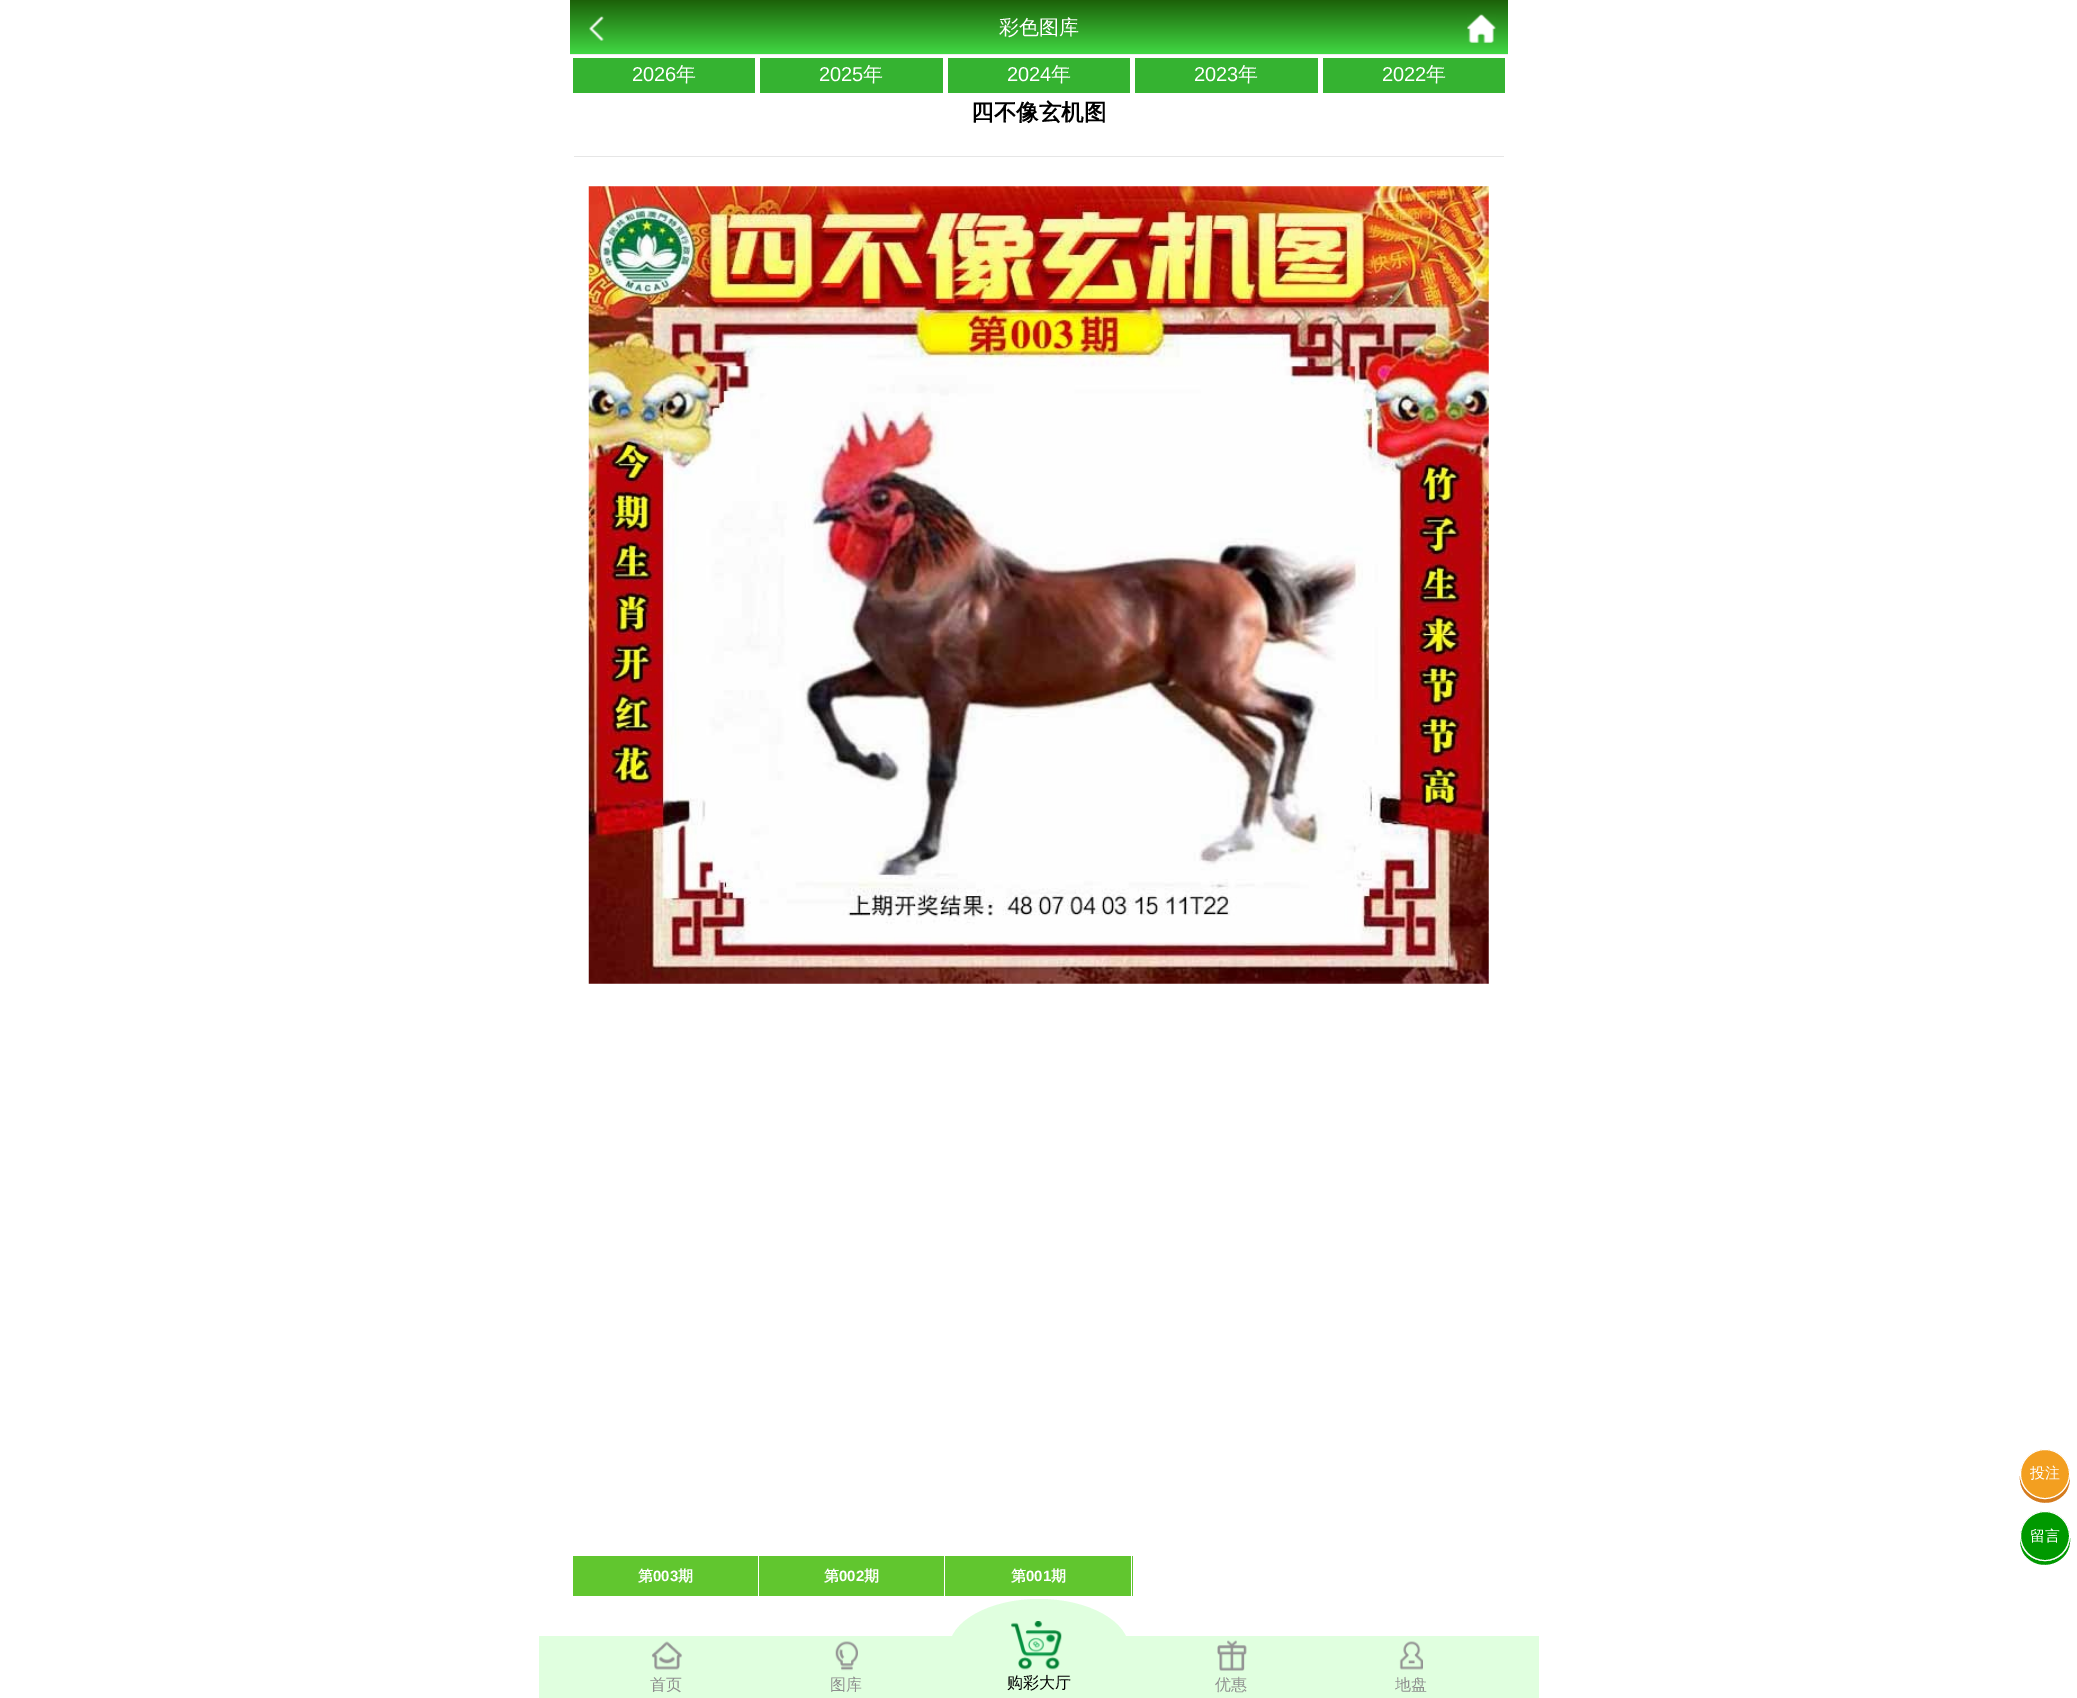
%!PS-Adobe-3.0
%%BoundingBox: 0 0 2077 1698
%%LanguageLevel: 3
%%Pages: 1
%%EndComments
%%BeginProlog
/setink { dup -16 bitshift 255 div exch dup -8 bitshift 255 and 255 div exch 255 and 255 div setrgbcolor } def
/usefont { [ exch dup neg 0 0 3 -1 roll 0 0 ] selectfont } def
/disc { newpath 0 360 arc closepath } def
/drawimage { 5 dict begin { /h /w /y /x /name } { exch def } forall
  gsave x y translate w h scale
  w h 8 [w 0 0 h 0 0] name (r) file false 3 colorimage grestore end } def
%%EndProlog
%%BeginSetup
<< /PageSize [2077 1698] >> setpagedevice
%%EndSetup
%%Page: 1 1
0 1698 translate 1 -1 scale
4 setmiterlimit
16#FFFFFF setink
0 0 2077 1698 rectfill
gsave 570 0 moveto 1508 0 lineto 1508 54 lineto 570 54 lineto closepath clip newpath
<< /ShadingType 2 /ColorSpace /DeviceRGB /Coords [1039 54 1039 0] /Extend [true true] /Function << /FunctionType 2 /Domain [0 1] /C0 [0.255 0.847 0.263] /C1 [0.11 0.38 0.035] /N 1 >> >> shfill grestore
16#EFEFEF setink
570 54 938 1 rectfill
(img1.raw) 589 16 15 25 drawimage
/WenQuanYiZenHei-Medium 20 usefont
16#FFFFFF setink
999 34 moveto (彩色图库) show
(img2.raw) 1467 14 29 29 drawimage
16#35B331 setink
573 58 182 35 rectfill
/LiberationSans-Regular 20 usefont
16#FFFFFF setink
632 81 moveto (2026) show
/WenQuanYiZenHei-Medium 20 usefont
676 81 moveto (年) show
16#35B331 setink
760 58 183 35 rectfill
/LiberationSans-Regular 20 usefont
16#FFFFFF setink
819 81 moveto (2025) show
/WenQuanYiZenHei-Medium 20 usefont
863 81 moveto (年) show
16#35B331 setink
948 58 182 35 rectfill
/LiberationSans-Regular 20 usefont
16#FFFFFF setink
1007 81 moveto (2024) show
/WenQuanYiZenHei-Medium 20 usefont
1051 81 moveto (年) show
16#35B331 setink
1135 58 183 35 rectfill
/LiberationSans-Regular 20 usefont
16#FFFFFF setink
1194 81 moveto (2023) show
/WenQuanYiZenHei-Medium 20 usefont
1238 81 moveto (年) show
16#35B331 setink
1323 58 182 35 rectfill
/LiberationSans-Regular 20 usefont
16#FFFFFF setink
1382 81 moveto (2022) show
/WenQuanYiZenHei-Medium 20 usefont
1426 81 moveto (年) show
/WenQuanYiZenHei-Bold 22.5 usefont
16#000000 setink
971 120 moveto (四不像玄机图) show
16#E6E6E6 setink
574 156 930 1 rectfill
(img3.raw) 588 186 901 798 drawimage
16#61C62F setink
573 1556 185 40 rectfill
/WenQuanYiZenHei-Bold 15 usefont
16#FFFFFF setink
638 1581 moveto (第) show
/LiberationSans-Bold 15 usefont
653 1581 moveto (003) show
/WenQuanYiZenHei-Bold 15 usefont
678 1581 moveto (期) show
16#61C62F setink
759 1556 185 40 rectfill
16#FFFFFF setink
824 1581 moveto (第) show
/LiberationSans-Bold 15 usefont
839 1581 moveto (002) show
/WenQuanYiZenHei-Bold 15 usefont
864 1581 moveto (期) show
16#61C62F setink
945 1556 188 40 rectfill
16#FFFFFF setink
1131 1556 1 40 rectfill
1011 1581 moveto (第) show
/LiberationSans-Bold 15 usefont
1026 1581 moveto (001) show
/WenQuanYiZenHei-Bold 15 usefont
1051 1581 moveto (期) show
16#D57B1D setink
2020 1476 moveto 2018 1501 2051 1513 2066 1492 curveto 2069 1487 2070 1482 2070 1476 curveto 2067 1506 2023 1506 2020 1476 curveto closepath fill
16#F39F20 setink
2045 1474 24.5 disc gsave fill grestore
16#FFFFFF setink
stroke
/WenQuanYiZenHei-Medium 15 usefont
2030 1478 moveto (投注) show
16#009900 setink
2020 1538 moveto 2020 1544 2021 1549 2024 1554 curveto 2039 1575 2072 1563 2070 1538 curveto 2068 1569 2022 1569 2020 1538 curveto closepath fill
2045 1536 24.5 disc gsave fill grestore
16#FFFFFF setink
stroke
2030 1541 moveto (留言) show
16#E0FFDF setink
539 1636 1000 62 rectfill
(img4.raw) 651 1641 32 29 drawimage
/WenQuanYiZenHei-Medium 16 usefont
16#8E8E8E setink
650 1690 moveto (首页) show
(img5.raw) 835 1641 23 30 drawimage
830 1690 moveto (图库) show
16#E0FFDF setink
1039 1599 moveto 1088.5 1599 1129 1621.5 1129 1649 curveto 1129 1676.5 1088.5 1699 1039 1699 curveto 989.5 1699 949 1676.5 949 1649 curveto 949 1621.5 989.5 1599 1039 1599 curveto closepath fill
(img6.raw) 1011 1621 51 49 drawimage
16#000000 setink
1007 1688 moveto (购彩大厅) show
(img7.raw) 1217 1640 30 31 drawimage
16#8E8E8E setink
1215 1690 moveto (优惠) show
(img8.raw) 1399 1641 24 29 drawimage
1395 1690 moveto (地盘) show
showpage
%%EOF
